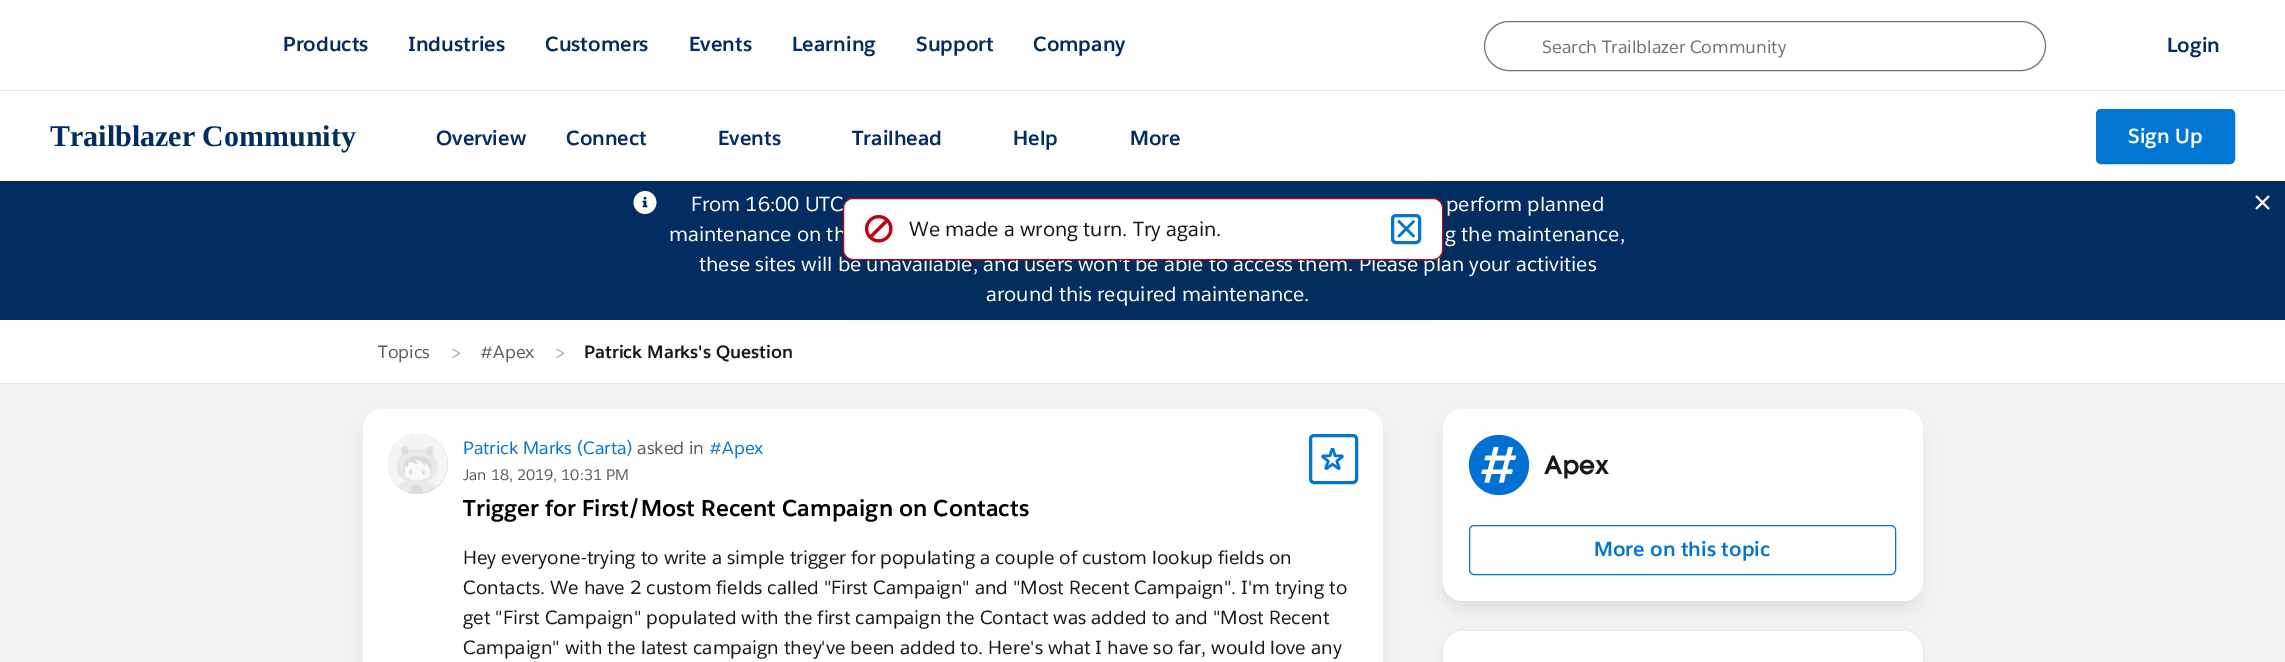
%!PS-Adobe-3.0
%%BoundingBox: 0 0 2285 662
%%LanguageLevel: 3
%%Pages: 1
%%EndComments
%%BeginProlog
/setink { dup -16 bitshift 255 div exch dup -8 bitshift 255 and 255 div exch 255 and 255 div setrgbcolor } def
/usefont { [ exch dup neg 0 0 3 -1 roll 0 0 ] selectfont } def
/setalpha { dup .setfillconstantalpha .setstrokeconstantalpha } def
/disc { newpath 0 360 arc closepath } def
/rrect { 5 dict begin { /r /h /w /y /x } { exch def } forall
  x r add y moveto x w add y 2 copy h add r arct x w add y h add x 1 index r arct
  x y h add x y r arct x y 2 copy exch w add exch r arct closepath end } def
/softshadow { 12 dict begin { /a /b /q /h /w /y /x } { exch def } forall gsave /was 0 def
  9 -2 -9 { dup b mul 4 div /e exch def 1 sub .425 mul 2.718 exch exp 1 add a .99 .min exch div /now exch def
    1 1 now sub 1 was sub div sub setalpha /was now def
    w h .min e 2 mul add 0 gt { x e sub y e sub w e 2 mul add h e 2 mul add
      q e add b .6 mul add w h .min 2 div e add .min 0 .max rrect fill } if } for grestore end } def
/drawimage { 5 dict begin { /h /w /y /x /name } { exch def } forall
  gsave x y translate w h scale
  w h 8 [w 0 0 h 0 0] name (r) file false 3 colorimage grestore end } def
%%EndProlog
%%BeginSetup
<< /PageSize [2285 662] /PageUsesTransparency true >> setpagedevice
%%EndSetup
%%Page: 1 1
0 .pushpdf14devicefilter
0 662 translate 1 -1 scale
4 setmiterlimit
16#FFFFFF setink
0 0 2285 662 rectfill
/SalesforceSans-Bold 20 usefont
16#032D60 setink
[
    [(Products) 283 51]
    [(Industries) 408 51]
    [(Customers) 545 51]
    [(Events) 689 51]
    [(Learning) 792 51]
    [(Support) 916 51]
    [(Company) 1033 51]
] { aload pop moveto show } forall
16#747474 setink
1484.5 21.5 561 49 24.5 rrect stroke
/SalesforceSans-Regular 17.5 usefont
1542 53 moveto (Search Trailblazer Community) show
/SalesforceSans-Bold 20 usefont
16#032D60 setink
2167 52 moveto (Login) show
16#E5E5E5 setink
0 90 2285 1 rectfill
/LiberationSerif-Bold 30 usefont
16#032D60 setink
50 146 moveto (Trailblazer Community) show
/SalesforceSans-Bold 20 usefont
436 145 moveto (Overview) show
566 145 moveto (Connect) show
0 181 2285 139 rectfill
16#181818 setink
845 230 595 58 8 30 0.12 softshadow
16#032D60 setink
[
    [(Events) 718 145]
    [(Trailhead) 852 145]
    [(Help) 1013 145]
    [(More) 1130 145]
] { aload pop moveto show } forall
16#0176D3 setink
2097.5 110.5 136 52 3.5 rrect gsave fill grestore
3 setlinewidth
stroke
16#FFFFFF setink
2128 143 moveto (Sign Up) show
(img1.raw) 633 191 24 23 drawimage
/SalesforceSans-Regular 20 usefont
[
    [(From 16:00 UTC) 691 211]
    [(perform planned) 1446 211]
    [(maintenance on th) 669 241]
    [(g the maintenance,) 1445 241]
    [(these sites will be unavailable, and users won't be able to access them. Please plan your activities) 699 271]
    [(around this required maintenance.) 986 301]
] { aload pop moveto show } forall
(img2.raw) 2255 195 15 15 drawimage
843.5 198.5 599 61 9.5 rrect gsave fill grestore
16#BA0517 setink
1 setlinewidth
stroke
(img3.raw) 864 214 29 29 drawimage
16#181818 setink
909 236 moveto (We made a wrong turn. Try again.) show
16#0176D3 setink
3 setlinewidth
1392.5 215.5 27 27 3.5 rrect stroke
(img4.raw) 1397 219 19 19 drawimage
16#F3F3F3 setink
0 384 2285 278 rectfill
16#E5E5E5 setink
0 383 2285 1 rectfill
/SalesforceSans-Regular 17.5 usefont
16#5C5C5C setink
378 358 moveto (Topics) show
/SalesforceSans-Regular 20 usefont
16#AEAEAE setink
450 359 moveto (>) show
/SalesforceSans-Regular 17.5 usefont
16#5C5C5C setink
480 358 moveto (#Apex) show
/SalesforceSans-Regular 20 usefont
16#AEAEAE setink
554 359 moveto (>) show
/SalesforceSans-Bold 17.5 usefont
16#181818 setink
584 358 moveto (Patrick Marks's Question) show
365 421 1015 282 18 7.5 0.09 softshadow
16#FFFFFF setink
363 409 1020 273 20 rrect fill
16#E5E5E5 setink
418 464 30 disc fill
(img5.raw) 388 434 59 60 drawimage
/SalesforceSans-Regular 17.5 usefont
16#0176D3 setink
463 454 moveto (Patrick Marks \(Carta\)) show
16#5C5C5C setink
637 454 moveto (asked in) show
16#0176D3 setink
709 454 moveto (#Apex) show
1310.5 435.5 46 47 3.5 rrect stroke
(img6.raw) 1321 448 23 22 drawimage
/SalesforceSans-Regular 15 usefont
16#5C5C5C setink
463 480 moveto (Jan 18, 2019, 10:31 PM) show
/SalesforceSans-Bold 22.5 usefont
16#000000 setink
463 516 moveto (Trigger for First/Most Recent Campaign on Contacts) show
/SalesforceSans-Regular 18.75 usefont
16#181818 setink
[
    [(Hey everyone-trying to write a simple trigger for populating a couple of custom lookup fields on) 463 564]
    [(Contacts. We have 2 custom fields called "First Campaign" and "Most Recent Campaign". I'm trying to) 463 594]
    [(get "First Campaign" populated with the first campaign the Contact was added to and "Most Recent) 463 624]
    [(Campaign" with the latest campaign they've been added to. Here's what I have so far, would love any) 463 654]
] { aload pop moveto show } forall
1441 631 483 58 21 2 0.06 softshadow
16#FFFFFF setink
1443 631 480 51 20 rrect fill
16#181818 setink
1445 421 475 188 18 7.5 0.09 softshadow
16#FFFFFF setink
1443 409 480 192 20 rrect fill
16#0070D2 setink
1499 465 30 disc fill
(img7.raw) 1481 447 36 36 drawimage
/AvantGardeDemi-SemiBold 25 usefont
16#181818 setink
1544 474 moveto (Apex) show
16#0176D3 setink
1 setlinewidth
1469.5 525.5 426 49 4.5 rrect stroke
/SalesforceSans-Bold 20 usefont
1594 556 moveto (More on this topic) show
.poppdf14devicefilter showpage
%%EOF
